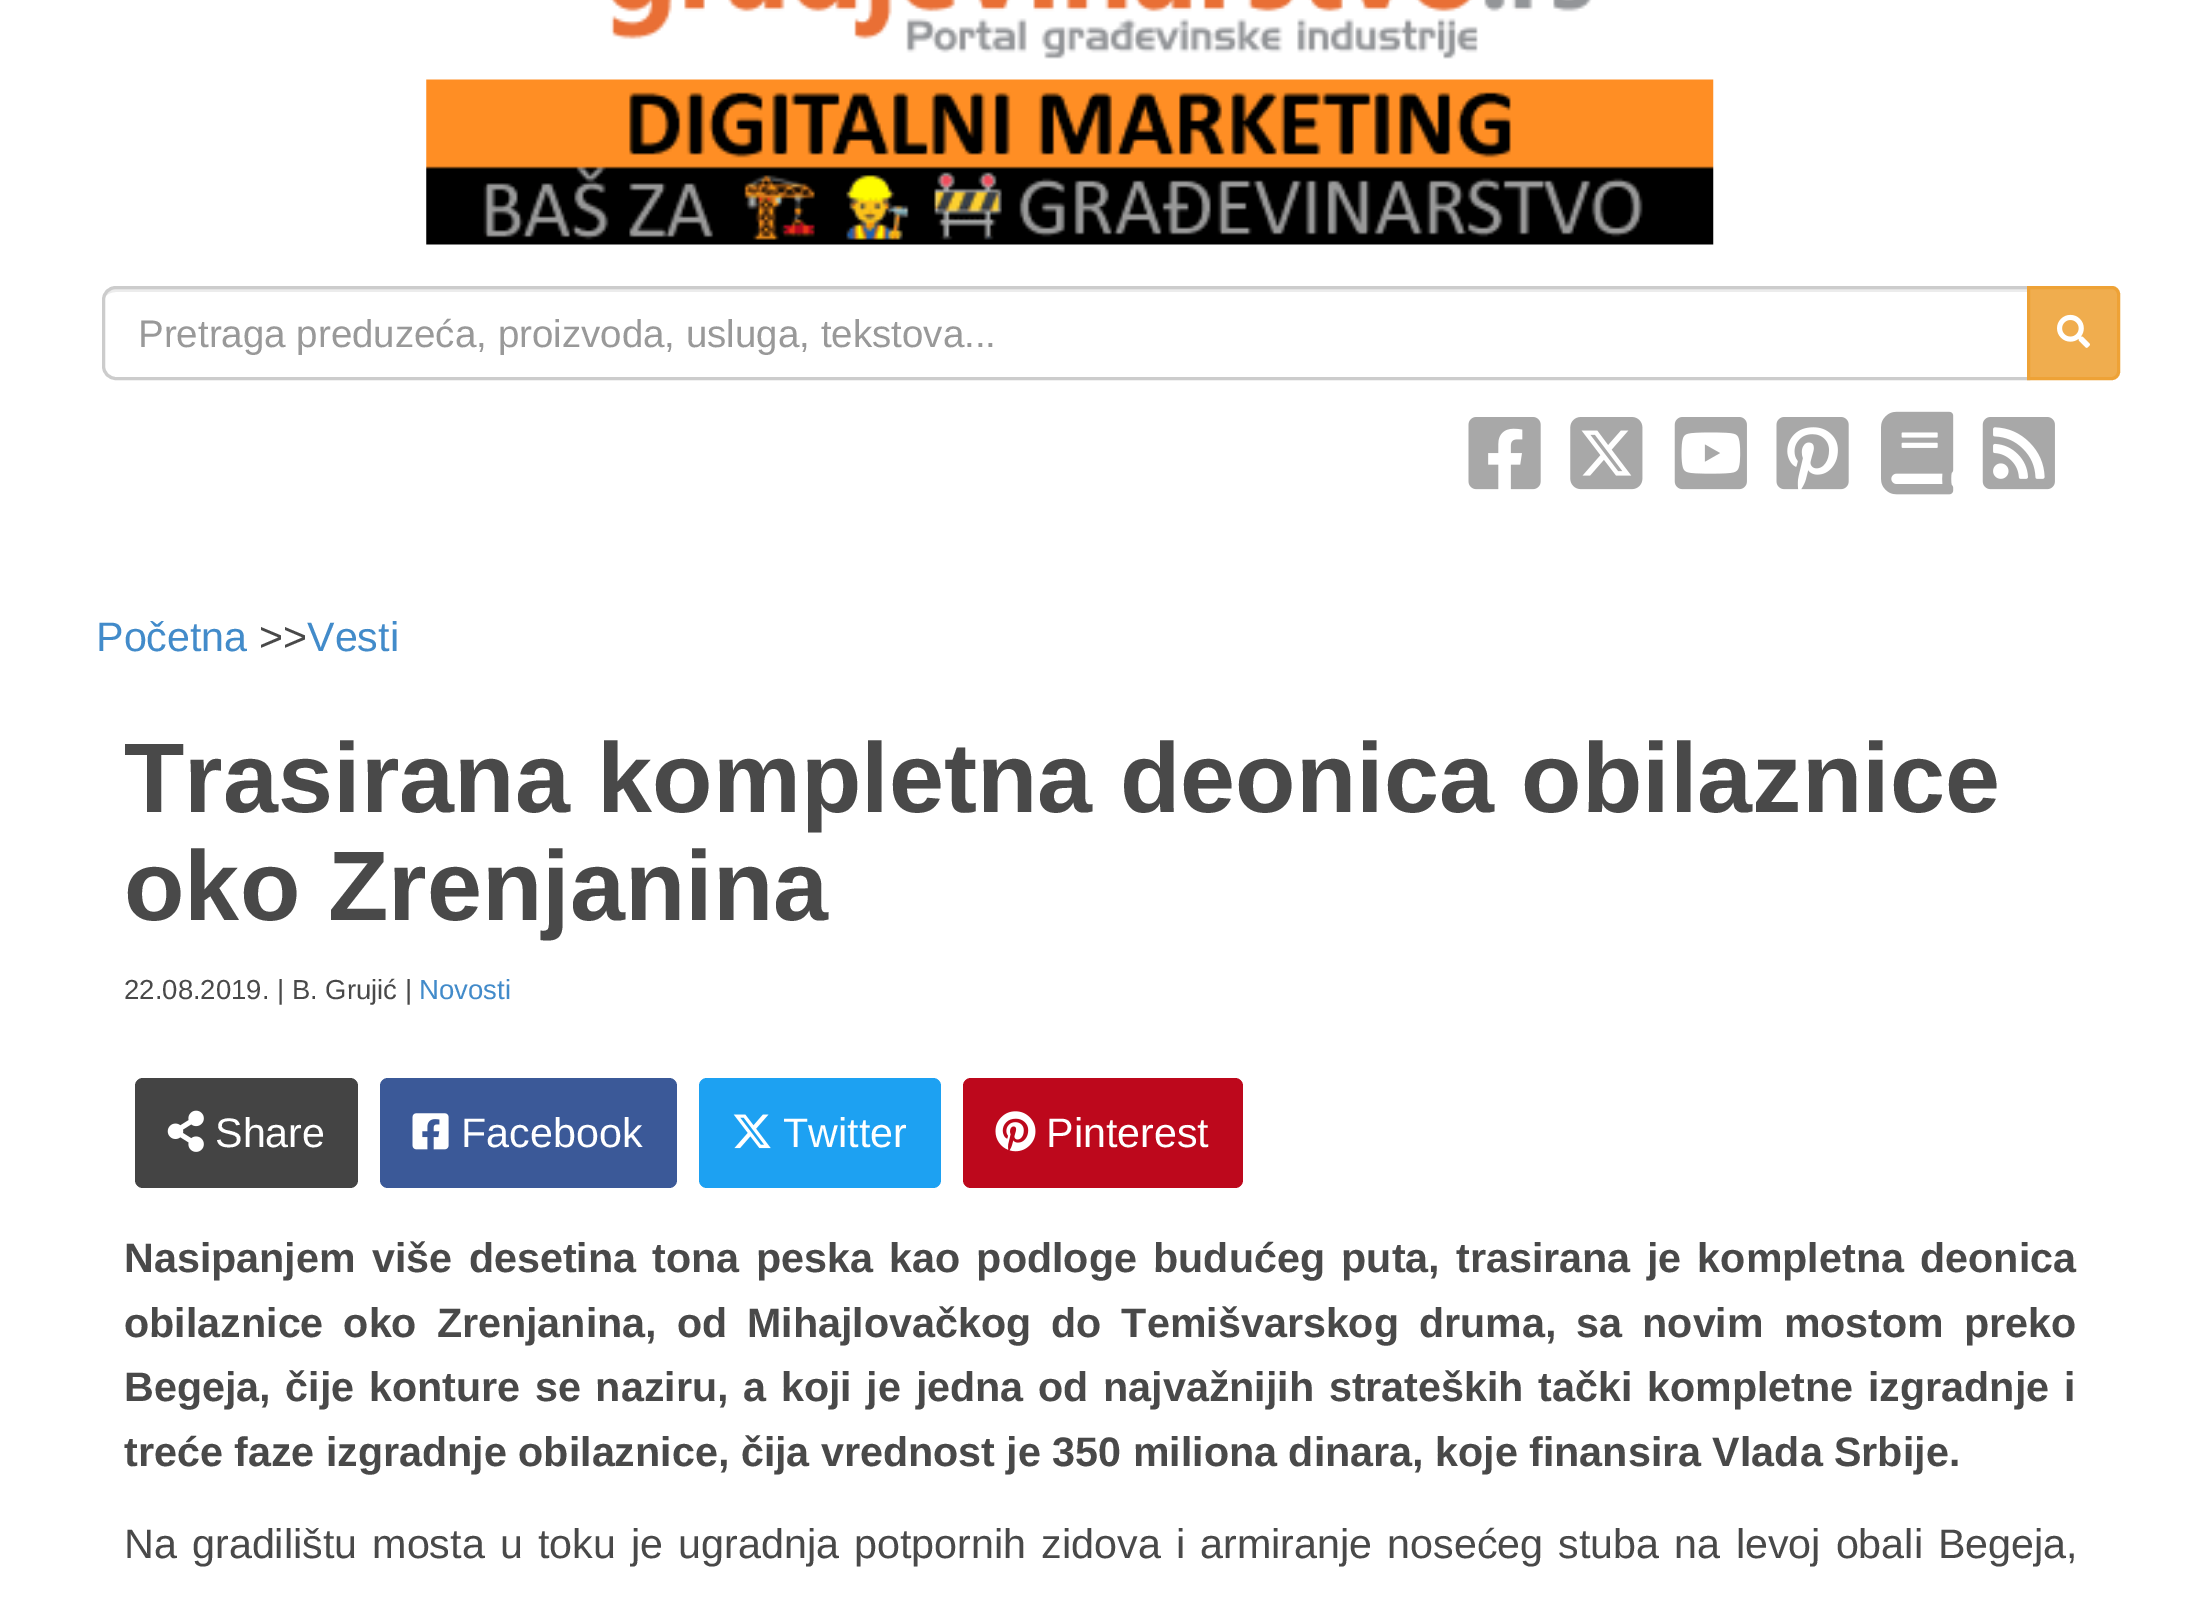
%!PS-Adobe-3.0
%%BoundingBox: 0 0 2199 1609
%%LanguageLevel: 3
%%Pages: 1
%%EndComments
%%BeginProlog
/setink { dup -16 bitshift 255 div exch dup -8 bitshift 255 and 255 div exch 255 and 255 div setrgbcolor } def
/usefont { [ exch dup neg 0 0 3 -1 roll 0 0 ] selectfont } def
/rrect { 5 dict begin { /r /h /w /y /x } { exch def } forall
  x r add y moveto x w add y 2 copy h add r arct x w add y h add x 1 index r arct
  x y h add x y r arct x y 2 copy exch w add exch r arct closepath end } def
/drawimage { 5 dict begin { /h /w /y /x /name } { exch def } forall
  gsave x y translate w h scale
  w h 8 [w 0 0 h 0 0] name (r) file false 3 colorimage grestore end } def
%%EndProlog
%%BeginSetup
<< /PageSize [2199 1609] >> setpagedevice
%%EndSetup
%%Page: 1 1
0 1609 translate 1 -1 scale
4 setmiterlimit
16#FFFFFF setink
0 0 2199 1609 rectfill
(img1.raw) 610 0 982 59 drawimage
(img2.raw) 426 79 1288 166 drawimage
16#ECECEC setink
116 292 moveto 2027 292 lineto 2027 289 lineto 116 289 lineto 111 289 107 292 105 297 curveto 107 294 111 292 116 292 curveto closepath fill
16#CCCCCC setink
3 setlinewidth
116 287.5 moveto 2028.5 287.5 lineto 2028.5 378.5 lineto 116 378.5 lineto 109 378.5 103.5 373 103.5 366 curveto 103.5 300 lineto 103.5 293 109 287.5 116 287.5 curveto closepath stroke
/LiberationSans-Regular 38.5 usefont
16#999999 setink
138 347 moveto (Pretraga preduzeća, proizvoda, usluga, tekstova...) show
16#F0AD4E setink
2028.5 287.5 moveto 2112 287.5 lineto 2115.5 287.5 2118.5 290.5 2118.5 294 curveto 2118.5 372 lineto 2118.5 375.5 2115.5 378.5 2112 378.5 curveto 2028.5 378.5 lineto closepath gsave fill grestore
16#EEA236 setink
stroke
(img3.raw) 2057 314 33 34 drawimage
(img4.raw) 1468 417 73 73 drawimage
(img5.raw) 1570 417 73 73 drawimage
(img6.raw) 1674 417 73 73 drawimage
(img7.raw) 1776 417 73 73 drawimage
(img8.raw) 1881 411 73 84 drawimage
(img9.raw) 1982 417 73 73 drawimage
/LiberationSans-Regular 41.25 usefont
16#428BCA setink
96 651 moveto (Početna) show
16#494949 setink
259 651 moveto (>>) show
16#428BCA setink
307 651 moveto (Vesti) show
/LiberationSans-Bold 99 usefont
16#494949 setink
124 812 moveto (Trasirana kompletna deonica obilaznice) show
124 920 moveto (oko Zrenjanina) show
/LiberationSans-Regular 27.5 usefont
124 999 moveto (22.08.2019. | B. Grujić |) show
16#428BCA setink
419 999 moveto (Novosti) show
16#444444 setink
135 1078 223 110 8 rrect fill
(img10.raw) 167 1110 37 42 drawimage
/LiberationSans-Regular 41.25 usefont
16#FFFFFF setink
215 1147 moveto (Share) show
16#3B5998 setink
380 1078 297 110 8 rrect fill
(img11.raw) 412 1113 37 37 drawimage
16#FFFFFF setink
461 1147 moveto (Facebook) show
16#1DA1F2 setink
699 1078 242 110 8 rrect fill
(img12.raw) 733 1114 38 35 drawimage
16#FFFFFF setink
783 1147 moveto (Twitter) show
16#BD081C setink
963 1078 280 110 8 rrect fill
(img13.raw) 995 1111 41 41 drawimage
16#FFFFFF setink
1046 1147 moveto (Pinterest) show
/LiberationSans-Bold 41.25 usefont
16#494949 setink
124 1272 moveto 4.9 0 32 (Nasipanjem više desetina tona peska kao podloge budućeg puta, trasirana je kompletna deonica) widthshow
124 1337 moveto 8.5 0 32 (obilaznice oko Zrenjanina, od Mihajlovačkog do Temišvarskog druma, sa novim mostom preko) widthshow
124 1401 moveto 3.25 0 32 (Begeja, čije konture se naziru, a koji je jedna od najvažnijih strateških tački kompletne izgradnje i) widthshow
124 1466 moveto (treće faze izgradnje obilaznice, čija vrednost je 350 miliona dinara, koje finansira Vlada Srbije.) show
/LiberationSans-Regular 41.25 usefont
124 1558 moveto 3.75 0 32 (Na gradilištu mosta u toku je ugradnja potpornih zidova i armiranje nosećeg stuba na levoj obali Begeja,) widthshow
showpage
%%EOF
